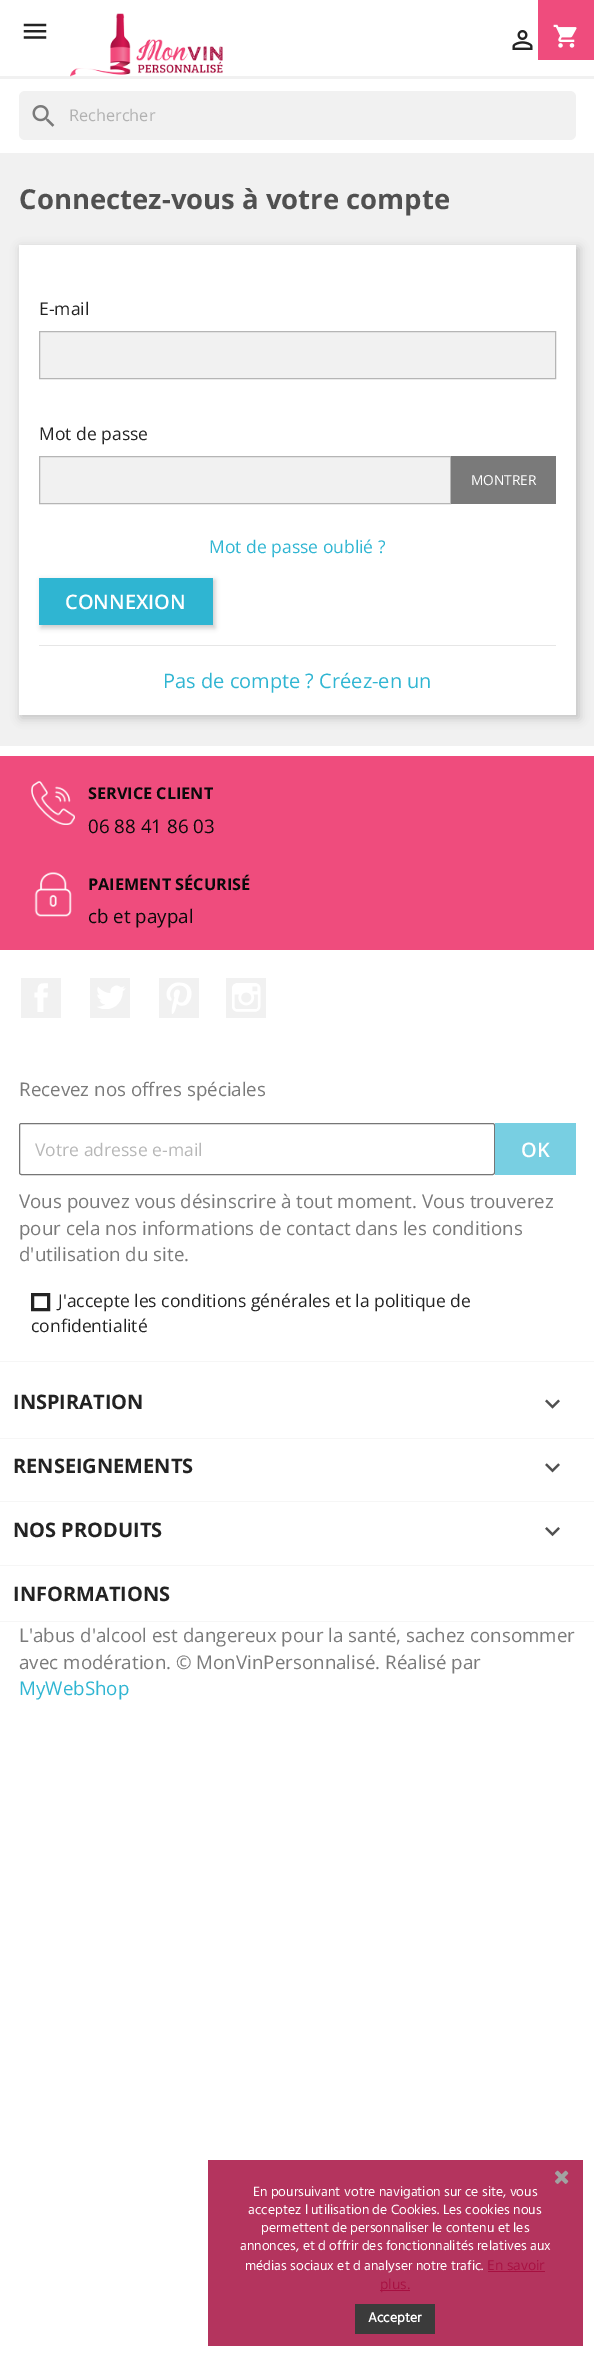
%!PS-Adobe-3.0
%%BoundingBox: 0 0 594 2358
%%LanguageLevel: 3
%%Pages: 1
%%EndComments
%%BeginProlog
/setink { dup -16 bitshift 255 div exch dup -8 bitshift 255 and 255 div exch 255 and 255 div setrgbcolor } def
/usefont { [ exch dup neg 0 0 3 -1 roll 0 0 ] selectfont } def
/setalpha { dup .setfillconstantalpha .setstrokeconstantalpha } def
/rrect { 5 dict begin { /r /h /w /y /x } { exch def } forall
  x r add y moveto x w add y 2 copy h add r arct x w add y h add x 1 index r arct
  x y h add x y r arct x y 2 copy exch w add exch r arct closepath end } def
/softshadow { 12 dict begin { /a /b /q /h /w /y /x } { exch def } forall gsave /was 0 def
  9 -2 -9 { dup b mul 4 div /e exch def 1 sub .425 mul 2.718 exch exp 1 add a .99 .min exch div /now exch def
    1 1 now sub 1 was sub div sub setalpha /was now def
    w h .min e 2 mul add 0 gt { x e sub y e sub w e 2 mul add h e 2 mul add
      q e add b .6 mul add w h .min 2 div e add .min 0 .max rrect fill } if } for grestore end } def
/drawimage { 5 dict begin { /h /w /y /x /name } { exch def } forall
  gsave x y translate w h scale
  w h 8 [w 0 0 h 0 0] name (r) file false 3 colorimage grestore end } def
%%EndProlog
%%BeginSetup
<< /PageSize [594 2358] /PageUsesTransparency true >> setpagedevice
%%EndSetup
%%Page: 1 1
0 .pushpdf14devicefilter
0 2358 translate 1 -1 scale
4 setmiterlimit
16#FFFFFF setink
0 0 594 2358 rectfill
16#F1F1F1 setink
0 76 594 3 rectfill
(img1.raw) 23 23 24 16 drawimage
(img2.raw) 70 13 153 64 drawimage
(img3.raw) 512 30 21 20 drawimage
16#EF4C7D setink
538 0 56 60 rectfill
(img4.raw) 553 24 24 24 drawimage
16#F1F1F1 setink
19 91 557 49 6 rrect fill
(img5.raw) 32 105 23 22 drawimage
/OpenSans-Regular 16.25 usefont
16#B1B1B1 setink
69 121 moveto (Rechercher) show
16#F1F1F1 setink
0 153 594 593 rectfill
/OpenSans-Bold 27.5 usefont
16#505050 setink
19 209 moveto (Connectez-vous à votre compte) show
16#000000 setink
21 248 558 470 0 5 0.2 softshadow
16#FFFFFF setink
19 245 557 470 rectfill
/OpenSans-Regular 17.5 usefont
16#232323 setink
39 315 moveto (E-mail) show
16#F1F1F1 setink
39.5 331.5 moveto 555.5 331.5 lineto 555.5 378.5 lineto 39.5 378.5 lineto closepath gsave fill grestore
16#B5B5B5 setink
stroke
16#232323 setink
39 440 moveto (Mot de passe) show
16#F1F1F1 setink
39.5 456.5 moveto 450.5 456.5 lineto 450.5 503.5 lineto 39.5 503.5 lineto closepath gsave fill grestore
16#B5B5B5 setink
stroke
16#7A7A7A setink
451 456 105 48 rectfill
/OpenSans-Regular 13.75 usefont
16#FFFFFF setink
471 485 moveto (MONTRER) show
/OpenSans-Regular 17.5 usefont
16#2FB5D2 setink
209 553 moveto (Mot de passe oublié ?) show
16#000000 setink
41 580 174 48 0 2.5 0.2 softshadow
16#2FB5D2 setink
39 578 174 47 rectfill
/OpenSans-SemiBold 20 usefont
16#FFFFFF setink
65 609 moveto (CONNEXION) show
16#E6E6E6 setink
39 645 517 1 rectfill
/OpenSans-Regular 20 usefont
16#2FB5D2 setink
163 688 moveto (Pas de compte ? Créez-en un) show
16#EF4C7D setink
0 756 594 194 rectfill
(img6.raw) 31 781 44 44 drawimage
/OpenSans-Bold 16.25 usefont
16#0A0A0A setink
88 799 moveto (SERVICE CLIENT) show
/OpenSans-Regular 18.75 usefont
88 833 moveto (06 88 41 86 03) show
(img7.raw) 34 872 38 45 drawimage
/OpenSans-Bold 16.25 usefont
88 890 moveto (PAIEMENT SÉCURISÉ) show
/OpenSans-Regular 18.75 usefont
88 923 moveto (cb et paypal) show
16#F1F1F1 setink
21 978 40 40 rectfill
(img8.raw) 34 983 14 29 drawimage
90 978 40 40 rectfill
(img9.raw) 97 985 29 24 drawimage
159 978 40 40 rectfill
(img10.raw) 166 982 26 32 drawimage
226 978 40 40 rectfill
(img11.raw) 232 983 29 29 drawimage
16#F6F6F6 setink
0 1361 594 1 rectfill
16#7A7A7A setink
19 1096 moveto (Recevez nos offres spéciales) show
16#767676 setink
19.5 1123.5 475 51 2 rrect stroke
/OpenSans-Regular 17.5 usefont
16#B7B7B7 setink
35 1156 moveto (Votre adresse e-mail) show
16#78CFE2 setink
495 1123 81 52 rectfill
/OpenSans-SemiBold 20 usefont
16#FFFFFF setink
521 1157 moveto (OK) show
/OpenSans-Regular 18.75 usefont
16#7A7A7A setink
[
    [(Vous pouvez vous désinscrire à tout moment. Vous trouverez) 19 1208]
    [(pour cela nos informations de contact dans les conditions) 19 1235]
    [(d'utilisation du site.) 19 1261]
] { aload pop moveto show } forall
16#232323 setink
3 setlinewidth
32.5 1294.5 16 15 rectstroke
/OpenSans-Regular 17.5 usefont
58 1307 moveto (J'accepte les conditions générales et la politique de) show
31 1332 moveto (confidentialité) show
16#F6F6F6 setink
0 1438 594 1 rectfill
/OpenSans-Bold 20 usefont
16#232323 setink
13 1409 moveto (INSPIRATION) show
(img12.raw) 545 1399 15 10 drawimage
16#F6F6F6 setink
0 1501 594 1 rectfill
16#232323 setink
13 1473 moveto (RENSEIGNEMENTS) show
(img13.raw) 545 1463 15 10 drawimage
16#F6F6F6 setink
0 1565 594 1 rectfill
16#232323 setink
13 1537 moveto (NOS PRODUITS) show
(img14.raw) 545 1527 15 10 drawimage
16#F6F6F6 setink
0 1621 594 1 rectfill
16#232323 setink
13 1601 moveto (INFORMATIONS) show
/OpenSans-Regular 18.75 usefont
16#7A7A7A setink
19 1642 moveto (L'abus d'alcool est dangereux pour la santé, sachez consommer) show
19 1669 moveto (avec modération. © MonVinPersonnalisé. Réalisé par) show
16#2FB5D2 setink
19 1695 moveto (MyWebShop) show
16#B4345E setink
208 2160 375 186 rectfill
(img15.raw) 555 2170 14 14 drawimage
/Hind-Regular 13.75 usefont
16#FFFFFF setink
[
    [(En poursuivant votre navigation sur ce site, vous) 253 2196]
    [(acceptez l utilisation de Cookies. Les cookies nous) 248 2214]
    [(permettent de personnaliser le contenu et les) 261 2232]
    [(annonces, et d offrir des fonctionnalités relatives aux) 240 2250]
    [(médias sociaux et d analyser notre trafic.) 245 2270]
] { aload pop moveto show } forall
/OpenSans-Regular 13.75 usefont
16#A71041 setink
487 2270 moveto (En savoir) show
488 2271 57 1 rectfill
380 2290 30 1 rectfill
380 2289 moveto (plus.) show
16#3B3B3B setink
355 2304 80 30 rectfill
/Hind-Bold 13.75 usefont
16#FFFFFF setink
368 2322 moveto (Accepter) show
.poppdf14devicefilter showpage
%%EOF
